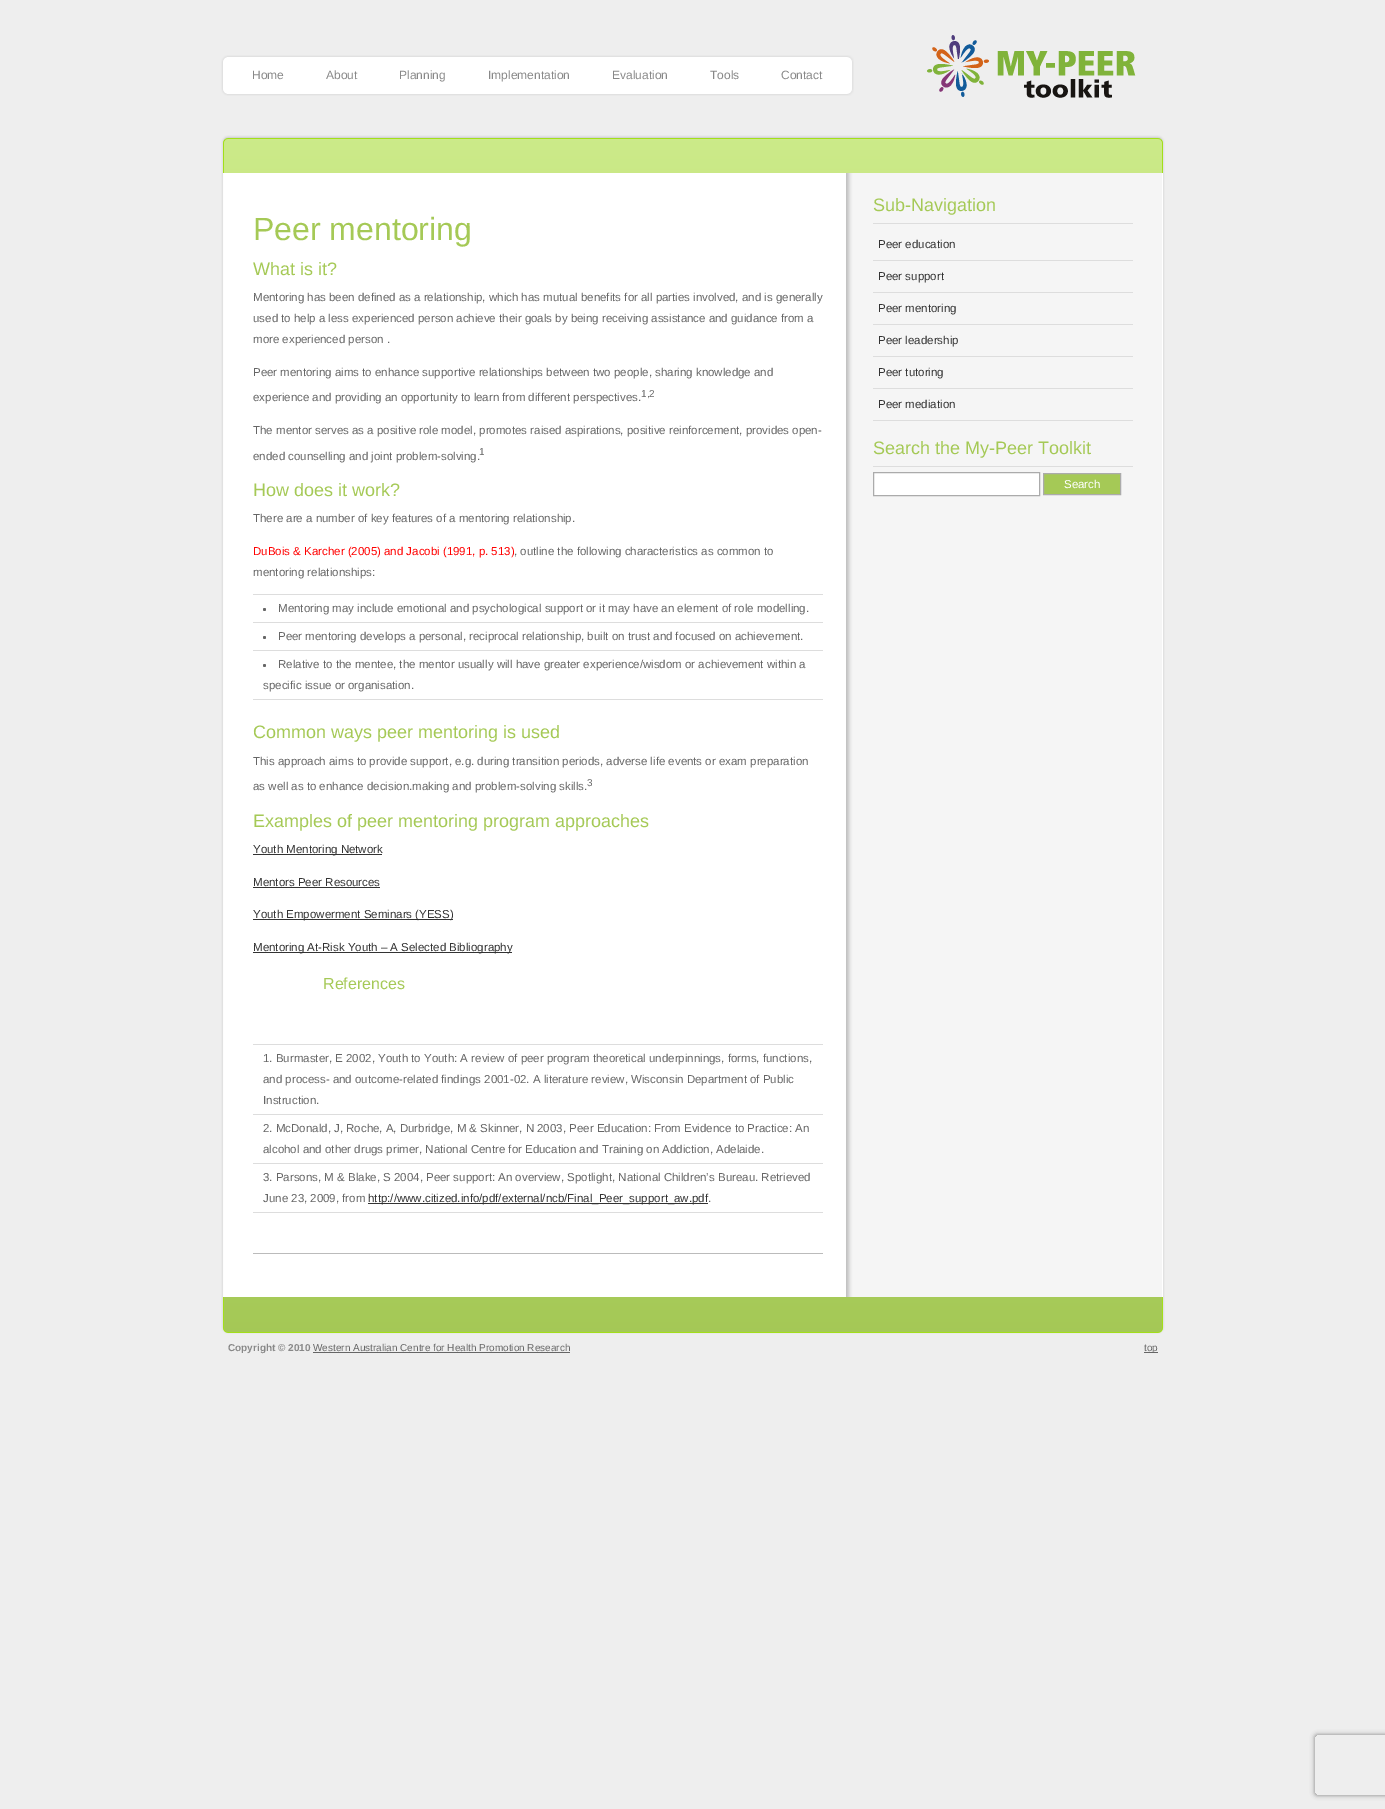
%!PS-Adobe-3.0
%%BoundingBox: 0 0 1385 1809
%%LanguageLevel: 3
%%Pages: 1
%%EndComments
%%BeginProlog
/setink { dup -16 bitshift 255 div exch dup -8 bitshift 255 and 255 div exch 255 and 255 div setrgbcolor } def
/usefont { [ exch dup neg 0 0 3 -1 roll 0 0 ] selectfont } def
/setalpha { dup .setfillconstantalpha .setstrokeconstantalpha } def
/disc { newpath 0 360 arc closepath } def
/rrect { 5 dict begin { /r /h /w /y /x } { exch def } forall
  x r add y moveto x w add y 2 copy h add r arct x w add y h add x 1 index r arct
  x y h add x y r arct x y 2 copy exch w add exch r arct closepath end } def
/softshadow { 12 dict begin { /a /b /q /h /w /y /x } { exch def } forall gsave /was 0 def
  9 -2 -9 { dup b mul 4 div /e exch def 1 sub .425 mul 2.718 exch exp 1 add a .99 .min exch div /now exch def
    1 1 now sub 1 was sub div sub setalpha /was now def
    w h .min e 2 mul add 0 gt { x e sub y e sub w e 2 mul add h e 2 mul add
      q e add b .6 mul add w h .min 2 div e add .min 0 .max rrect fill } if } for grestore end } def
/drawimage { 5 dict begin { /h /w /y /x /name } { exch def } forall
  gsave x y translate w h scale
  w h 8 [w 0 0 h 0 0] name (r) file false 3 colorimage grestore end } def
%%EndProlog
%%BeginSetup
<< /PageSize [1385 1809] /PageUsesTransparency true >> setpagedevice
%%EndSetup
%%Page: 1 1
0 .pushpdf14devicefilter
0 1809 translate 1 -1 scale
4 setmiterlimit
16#EEEEEE setink
0 0 1385 1809 rectfill
(img1.raw) 227 55 627 41 drawimage
(img2.raw) 218 55 9 41 drawimage
/LiberationSans-Regular 12 usefont
16#888888 setink
[
    [(Home) 252 79]
    [(About) 326 79]
    [(Planning) 399 79]
    [(Implementation) 488 79]
    [(Evaluation) 612 79]
    [(Tools) 710 79]
    [(Contact) 781 79]
] { aload pop moveto show } forall
(img3.raw) 927 35 209 63 drawimage
(img4.raw) 221 135 944 38 drawimage
(img5.raw) 221 173 944 1124 drawimage
16#BBBBBB setink
253 1253 570 1 rectfill
/LiberationSans-Regular 32 usefont
16#A5C956 setink
253 240 moveto (Peer mentoring) show
/LiberationSans-Regular 18 usefont
253 275 moveto (What is it?) show
/LiberationSans-Regular 11.5 usefont
16#666666 setink
[
    [(Mentoring has been defined as a relationship, which has mutual benefits for all parties involved, and is generally) 253 301]
    [(used to help a less experienced person achieve their goals by being receiving assistance and guidance from a) 253 322]
    [(more experienced person .) 253 343]
    [(Peer mentoring aims to enhance supportive relationships between two people, sharing knowledge and) 253 376]
    [(experience and providing an opportunity to learn from different perspectives.) 253 401]
] { aload pop moveto show } forall
/LiberationSans-Regular 10 usefont
641 397 moveto (1,2) show
/LiberationSans-Regular 11.5 usefont
253 434 moveto (The mentor serves as a positive role model, promotes raised aspirations, positive reinforcement, provides open-) show
253 460 moveto (ended counselling and joint problem-solving.) show
/LiberationSans-Regular 10 usefont
479 455 moveto (1) show
/LiberationSans-Regular 18 usefont
16#A5C956 setink
253 496 moveto (How does it work?) show
/LiberationSans-Regular 11.5 usefont
16#666666 setink
253 522 moveto (There are a number of key features of a mentoring relationship.) show
16#FF0000 setink
253 555 moveto (DuBois & Karcher \(2005\) and Jacobi \(1991, p. 513\)) show
16#666666 setink
514 555 moveto (, outline the following characteristics as common to) show
253 576 moveto (mentoring relationships:) show
16#DDDDDD setink
253 594 570 1 rectfill
253 622 570 1 rectfill
16#666666 setink
264.5 609.5 1.5 disc fill
278 612 moveto (Mentoring may include emotional and psychological support or it may have an element of role modelling.) show
16#DDDDDD setink
253 650 570 1 rectfill
16#666666 setink
264.5 637.5 1.5 disc fill
278 640 moveto (Peer mentoring develops a personal, reciprocal relationship, built on trust and focused on achievement.) show
16#DDDDDD setink
253 699 570 1 rectfill
16#666666 setink
264.5 665.5 1.5 disc fill
278 668 moveto (Relative to the mentee, the mentor usually will have greater experience/wisdom or achievement within a) show
263 689 moveto (specific issue or organisation.) show
/LiberationSans-Regular 18 usefont
16#A5C956 setink
253 738 moveto (Common ways peer mentoring is used) show
/LiberationSans-Regular 11.5 usefont
16#666666 setink
253 765 moveto (This approach aims to provide support, e.g. during transition periods, adverse life events or exam preparation) show
253 790 moveto (as well as to enhance decision.making and problem-solving skills.) show
/LiberationSans-Regular 10 usefont
587 786 moveto (3) show
/LiberationSans-Regular 18 usefont
16#A5C956 setink
253 827 moveto (Examples of peer mentoring program approaches) show
16#333333 setink
253 854 129 1 rectfill
/LiberationSans-Regular 11.5 usefont
253 853 moveto (Youth Mentoring Network) show
253 886 moveto (Mentors Peer Resources) show
253 887 127 1 rectfill
253 919 200 1 rectfill
253 918 moveto (Youth Empowerment Seminars \(YESS\)) show
253 952 259 1 rectfill
253 951 moveto (Mentoring At-Risk Youth – A Selected Bibliography) show
/LiberationSans-Regular 16 usefont
16#A5C956 setink
323 989 moveto (References) show
16#DDDDDD setink
253 1044 570 1 rectfill
253 1114 570 1 rectfill
/LiberationSans-Regular 11.5 usefont
16#666666 setink
[
    [(1. Burmaster, E 2002, Youth to Youth: A review of peer program theoretical underpinnings, forms, functions,) 263 1062]
    [(and process- and outcome-related findings 2001-02. A literature review, Wisconsin Department of Public) 263 1083]
    [(Instruction.) 263 1104]
] { aload pop moveto show } forall
16#DDDDDD setink
253 1163 570 1 rectfill
16#666666 setink
263 1132 moveto (2. McDonald, J, Roche, A, Durbridge, M & Skinner, N 2003, Peer Education: From Evidence to Practice: An) show
263 1153 moveto (alcohol and other drugs primer, National Centre for Education and Training on Addiction, Adelaide.) show
16#DDDDDD setink
253 1212 570 1 rectfill
16#666666 setink
263 1181 moveto (3. Parsons, M & Blake, S 2004, Peer support: An overview, Spotlight, National Children’s Bureau. Retrieved) show
263 1202 moveto (June 23, 2009, from) show
16#333333 setink
368 1203 340 1 rectfill
368 1202 moveto (http://www.citized.info/pdf/external/ncb/Final_Peer_support_aw.pdf) show
16#666666 setink
708 1202 moveto (.) show
16#DDDDDD setink
873 223 260 1 rectfill
/LiberationSans-Regular 18 usefont
16#A5C956 setink
873 211 moveto (Sub-Navigation) show
16#DDDDDD setink
873 260 260 1 rectfill
/LiberationSans-Regular 11.5 usefont
16#333333 setink
878 248 moveto (Peer education) show
16#DDDDDD setink
873 292 260 1 rectfill
16#333333 setink
878 280 moveto (Peer support) show
16#DDDDDD setink
873 324 260 1 rectfill
16#333333 setink
878 312 moveto (Peer mentoring) show
16#DDDDDD setink
873 356 260 1 rectfill
16#333333 setink
878 344 moveto (Peer leadership) show
16#DDDDDD setink
873 388 260 1 rectfill
16#333333 setink
878 376 moveto (Peer tutoring) show
16#DDDDDD setink
873 420 260 1 rectfill
16#333333 setink
878 408 moveto (Peer mediation) show
16#DDDDDD setink
873 466 260 1 rectfill
/LiberationSans-Regular 18 usefont
16#A5C956 setink
873 454 moveto (Search the My-Peer Toolkit) show
16#FFFFFF setink
873.5 472.5 moveto 1039.5 472.5 lineto 1039.5 495.5 lineto 873.5 495.5 lineto closepath gsave fill grestore
16#ABABAB setink
stroke
16#A5C956 setink
1043.5 473.5 moveto 1120.5 473.5 lineto 1120.5 494.5 lineto 1043.5 494.5 lineto closepath gsave fill grestore
16#ABABAB setink
stroke
/LiberationSans-Regular 11.5 usefont
16#FFFFFF setink
1064 488 moveto (Search) show
(img6.raw) 221 1297 944 37 drawimage
/LiberationSans-Bold 10 usefont
16#888888 setink
228 1351 moveto (Copyright © 2010) show
/LiberationSans-Regular 10 usefont
16#666666 setink
313 1351 moveto (Western Australian Centre for Health Promotion Research) show
313 1352 257 1 rectfill
1144 1352 14 1 rectfill
1144 1351 moveto (top) show
gsave
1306 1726 moveto 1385 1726 lineto 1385 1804 lineto 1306 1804 lineto closepath 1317 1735 moveto 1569 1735 lineto 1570 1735 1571 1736 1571 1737 curveto 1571 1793 lineto 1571 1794 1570 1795 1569 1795 curveto 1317 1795 lineto 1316 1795 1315 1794 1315 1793 curveto 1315 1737 lineto 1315 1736 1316 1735 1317 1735 curveto closepath eoclip newpath
16#808080 setink
1315 1735 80 60 2 2.5 1 softshadow
grestore
.poppdf14devicefilter showpage
%%EOF
